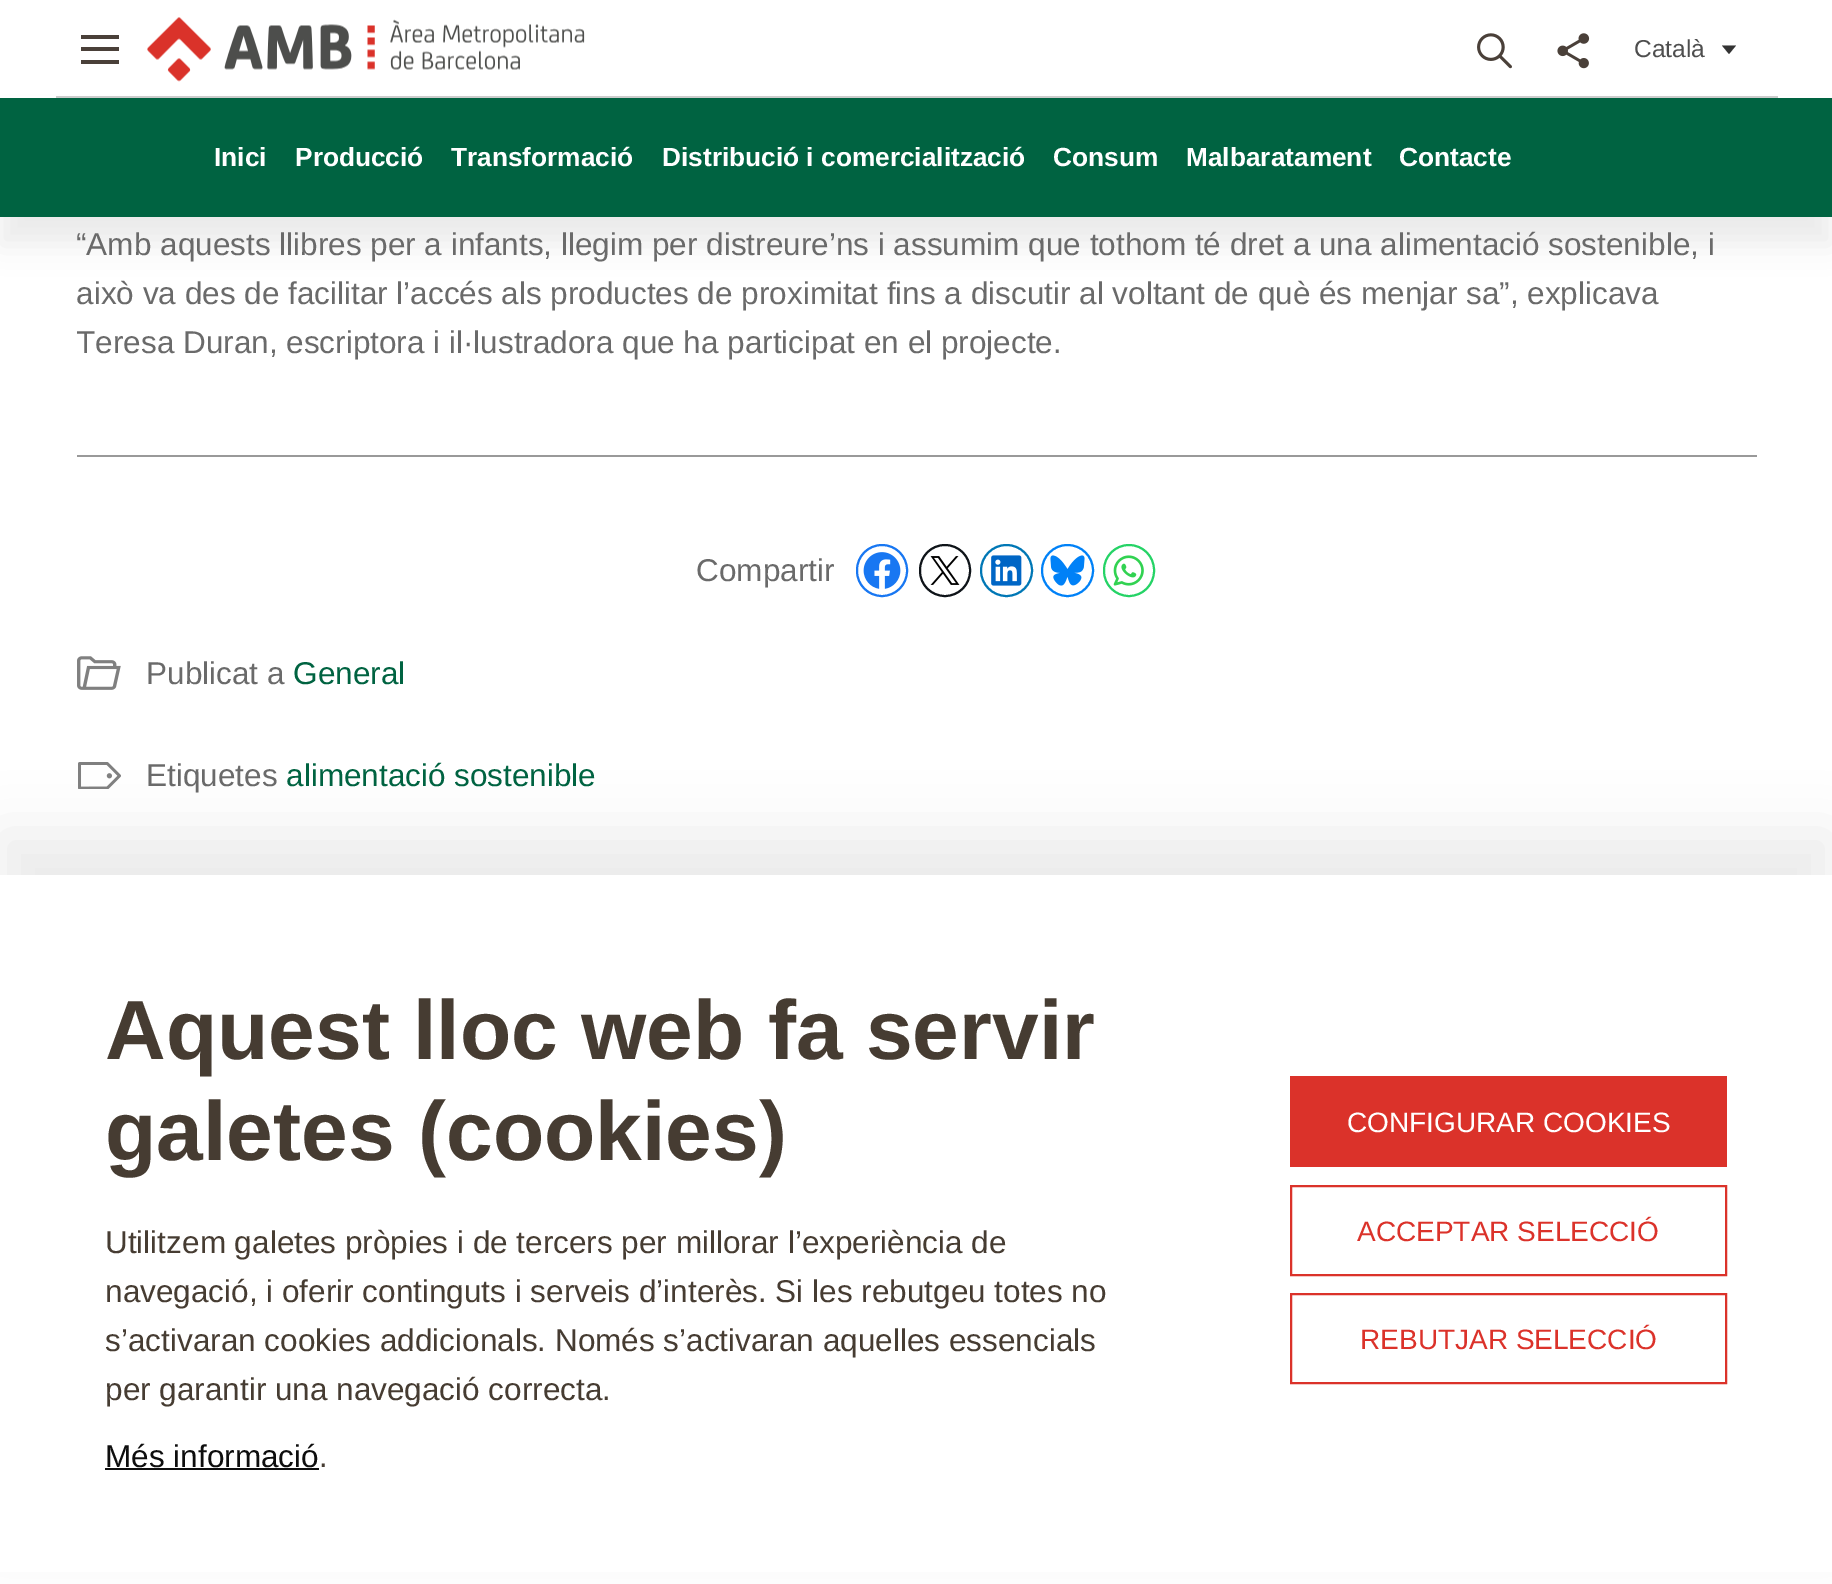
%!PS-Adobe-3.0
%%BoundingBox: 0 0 1832 1584
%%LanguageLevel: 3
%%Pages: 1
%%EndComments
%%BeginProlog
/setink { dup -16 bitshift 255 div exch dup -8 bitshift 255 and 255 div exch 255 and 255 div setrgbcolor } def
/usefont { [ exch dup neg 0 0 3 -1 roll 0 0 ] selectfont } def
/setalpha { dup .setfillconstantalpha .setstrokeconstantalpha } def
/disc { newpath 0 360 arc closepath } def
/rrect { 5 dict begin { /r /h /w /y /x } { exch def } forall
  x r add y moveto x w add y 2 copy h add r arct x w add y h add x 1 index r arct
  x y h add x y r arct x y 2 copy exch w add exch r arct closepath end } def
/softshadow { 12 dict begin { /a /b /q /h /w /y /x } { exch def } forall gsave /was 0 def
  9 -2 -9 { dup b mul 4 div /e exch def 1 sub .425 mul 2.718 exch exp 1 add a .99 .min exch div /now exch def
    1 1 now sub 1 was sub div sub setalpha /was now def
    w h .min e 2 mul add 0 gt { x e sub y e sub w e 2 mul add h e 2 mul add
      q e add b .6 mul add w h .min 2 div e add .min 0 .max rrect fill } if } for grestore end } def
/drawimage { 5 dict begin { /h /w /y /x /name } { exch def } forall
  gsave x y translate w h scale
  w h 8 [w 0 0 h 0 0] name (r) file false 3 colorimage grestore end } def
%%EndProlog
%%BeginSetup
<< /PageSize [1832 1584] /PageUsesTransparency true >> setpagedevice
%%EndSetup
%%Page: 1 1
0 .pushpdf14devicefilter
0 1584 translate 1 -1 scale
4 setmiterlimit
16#FFFFFF setink
0 0 1832 1584 rectfill
16#0E0E0E setink
0 126 1832 119 0 14 0.07 softshadow
[
    [56 96 1722 2 16#CCCCCC]
    [81 47 38 4 16#4A4039]
    [81 35 38 4 16#4A4039]
    [81 60 38 4 16#4A4039]
] { aload pop setink rectfill } forall
(img1.raw) 147 17 438 65 drawimage
(img2.raw) 1477 33 35 36 drawimage
(img3.raw) 1557 33 33 36 drawimage
/LiberationSans-Regular 24.5 usefont
16#4E4E4E setink
1634 57 moveto (Català) show
16#333333 setink
1722 45.5 moveto 1736 45.5 lineto 1729 54 lineto closepath fill
16#006341 setink
0 98 1832 119 rectfill
/LiberationSans-Bold 26.25 usefont
16#FFFFFF setink
[
    [(Inici) 214 166]
    [(Producció) 295 166]
    [(Transformació) 451 166]
    [(Distribució i comercialització) 662 166]
    [(Consum) 1053 166]
    [(Malbaratament) 1186 166]
    [(Contacte) 1399 166]
] { aload pop moveto show } forall
/LiberationSans-Regular 31.5 usefont
16#6A6A6A setink
76 255 moveto (“Amb aquests llibres per a infants, llegim per distreure’ns i assumim que tothom té dret a una alimentació sostenible, i) show
76 304 moveto (això va des de facilitar l’accés als productes de proximitat fins a discutir al voltant de què és menjar sa”, explicava) show
gsave
77 0 1680 368 rectclip
76 353 moveto (Teresa Duran, escriptora i il·lustradora que ha participat en el projecte.) show
grestore
16#999999 setink
77 455 1680 2 rectfill
16#6A6A6A setink
696 581 moveto (Compartir) show
(img4.raw) 863 552 38 37 drawimage
16#1877F2 setink
2 setlinewidth
857 545 50 51 25 rrect stroke
(img5.raw) 930 556 30 29 drawimage
16#0F1419 setink
920 545 50 51 25 rrect stroke
(img6.raw) 991 555 31 31 drawimage
16#0077B5 setink
1006.5 570.5 25.5 disc stroke
(img7.raw) 1050 555 35 31 drawimage
16#0081F7 setink
1067.5 570.5 25.5 disc stroke
(img8.raw) 1113 555 31 31 drawimage
16#25D366 setink
1104 545 50 51 25 rrect stroke
(img9.raw) 77 656 44 34 drawimage
16#6A6A6A setink
146 684 moveto (Publicat a) show
16#006341 setink
293 684 moveto (General) show
(img10.raw) 78 762 43 27 drawimage
16#6A6A6A setink
146 786 moveto (Etiquetes) show
16#006341 setink
286 786 moveto (alimentació sostenible) show
16#0E0E0E setink
0 833 1832 711 0 28 0.07 softshadow
16#FFFFFF setink
0 875 1832 697 rectfill
/LiberationSans-Bold 84 usefont
16#463C32 setink
105 1059 moveto (Aquest lloc web fa servir) show
105 1160 moveto (galetes \(cookies\)) show
/LiberationSans-Regular 31.5 usefont
[
    [(Utilitzem galetes pròpies i de tercers per millorar l’experiència de) 105 1253]
    [(navegació, i oferir continguts i serveis d’interès. Si les rebutgeu totes no) 105 1302]
    [(s’activaran cookies addicionals. Només s’activaran aquelles essencials) 105 1351]
    [(per garantir una navegació correcta.) 105 1400]
] { aload pop moveto show } forall
16#0E0E0E setink
105 1467 moveto (Més informació) show
105 1468 214 2 rectfill
16#463C32 setink
319 1467 moveto (.) show
16#DB322A setink
1290 1076 437 91 rectfill
/LiberationSans-Regular 28 usefont
16#FFFFFF setink
1347 1132 moveto (CONFIGURAR COOKIES) show
16#DB322A setink
1291 1186 435 89 rectstroke
1357 1241 moveto (ACCEPTAR SELECCIÓ) show
1291 1294 435 89 rectstroke
1360 1349 moveto (REBUTJAR SELECCIÓ) show
.poppdf14devicefilter showpage
%%EOF
